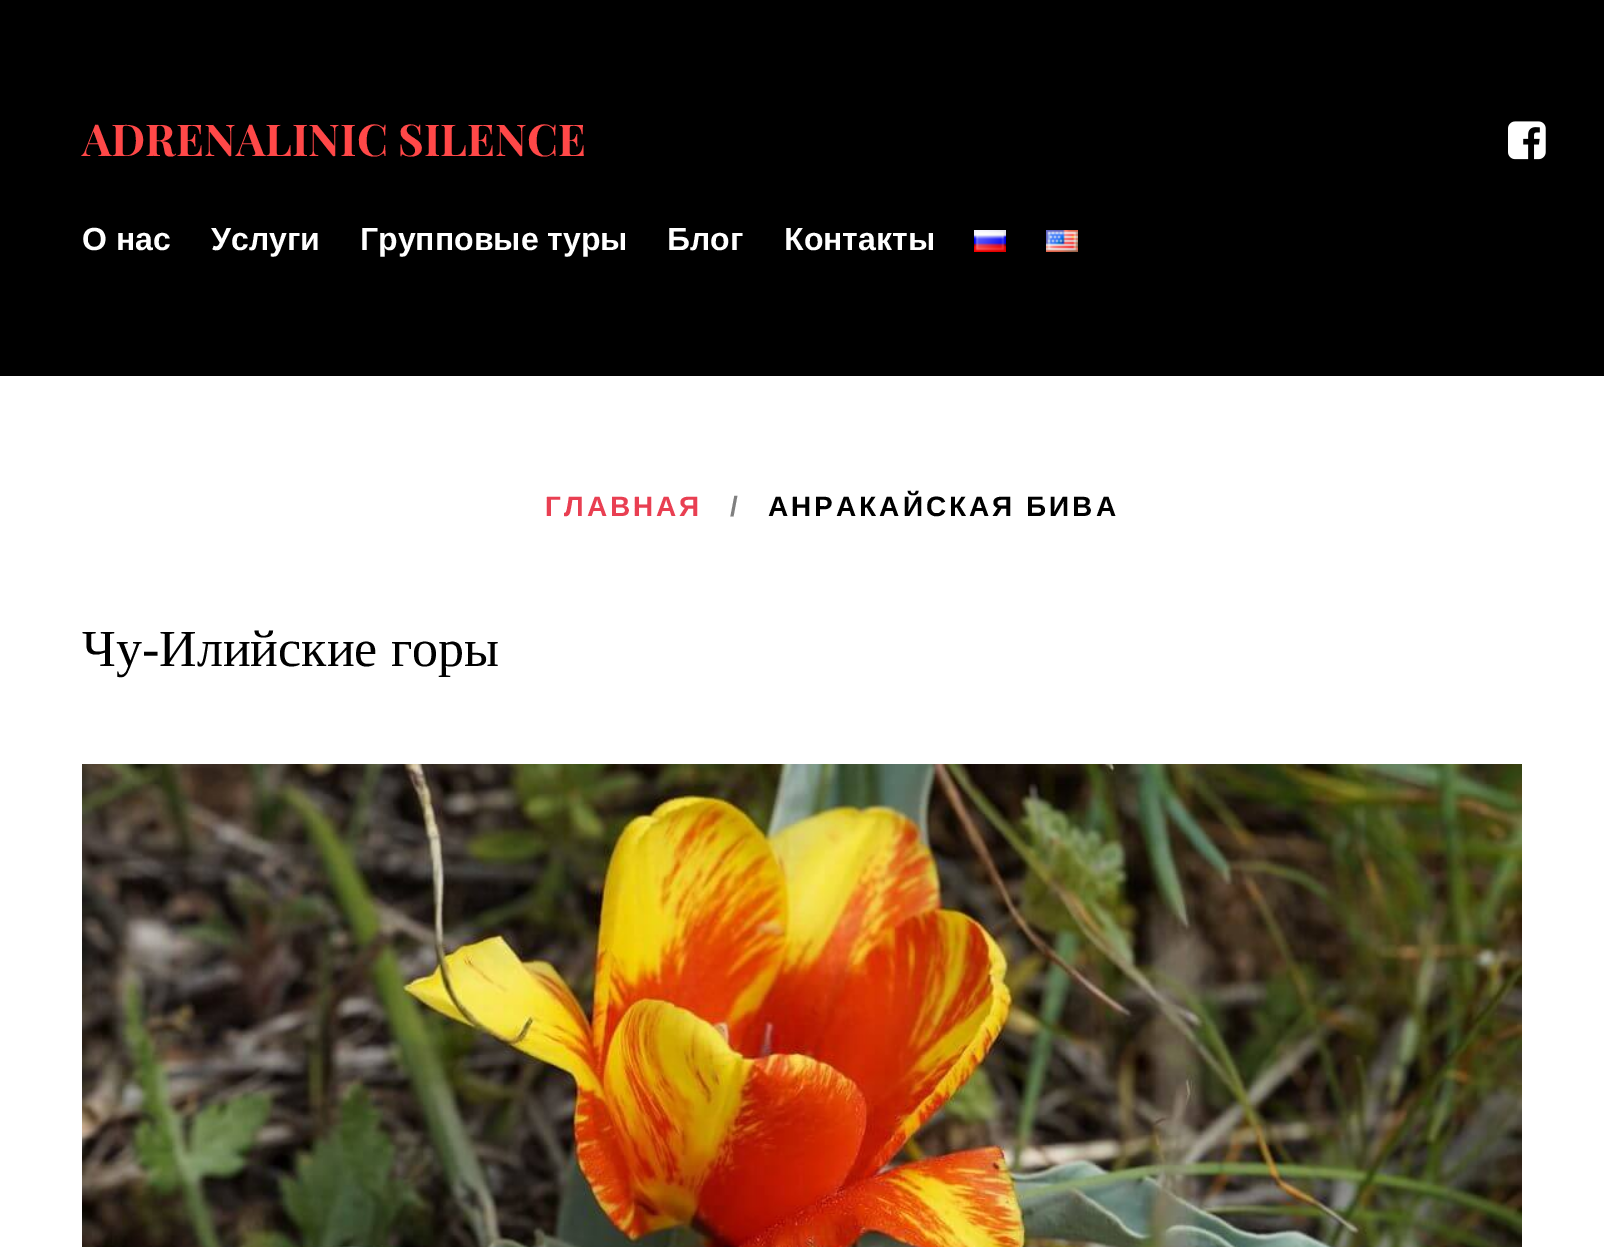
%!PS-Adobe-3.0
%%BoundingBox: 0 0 1604 1247
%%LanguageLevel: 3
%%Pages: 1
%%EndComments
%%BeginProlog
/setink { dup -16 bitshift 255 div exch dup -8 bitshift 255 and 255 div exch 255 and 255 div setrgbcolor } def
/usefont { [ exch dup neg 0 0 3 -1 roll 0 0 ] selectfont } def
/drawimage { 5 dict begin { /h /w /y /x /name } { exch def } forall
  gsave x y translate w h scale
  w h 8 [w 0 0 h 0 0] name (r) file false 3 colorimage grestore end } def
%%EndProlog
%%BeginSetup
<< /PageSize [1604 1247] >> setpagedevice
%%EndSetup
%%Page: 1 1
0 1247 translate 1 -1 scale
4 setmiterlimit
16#FFFFFF setink
0 0 1604 1247 rectfill
16#000000 setink
0 0 1604 376 rectfill
/PlayfairDisplay-Bold 44 usefont
16#FF4848 setink
82 156 moveto (ADRENALINIC SILENCE) show
(img1.raw) 1508 121 38 39 drawimage
/LiberationSans-Bold 32 usefont
16#FFFFFF setink
[
    [(О нас) 82 250]
    [(Услуги) 211 250]
    [(Групповые туры) 360 250]
    [(Блог) 667 250]
    [(Контакты) 784 250]
] { aload pop moveto show } forall
(img2.raw) 974 230 32 22 drawimage
(img3.raw) 1046 230 32 22 drawimage
/LiberationSans-Bold 28 usefont
16#E93F52 setink
545 516 moveto 3 0 (ГЛАВНАЯ) ashow
16#808080 setink
730 516 moveto 3 0 (/) ashow
16#000000 setink
768 516 moveto 3 0 (АНРАКАЙСКАЯ БИВА) ashow
/LiberationSerif-Regular 52 usefont
82 666 moveto (Чу-Илийские горы) show
(img4.raw) 82 764 1440 483 drawimage
showpage
%%EOF
